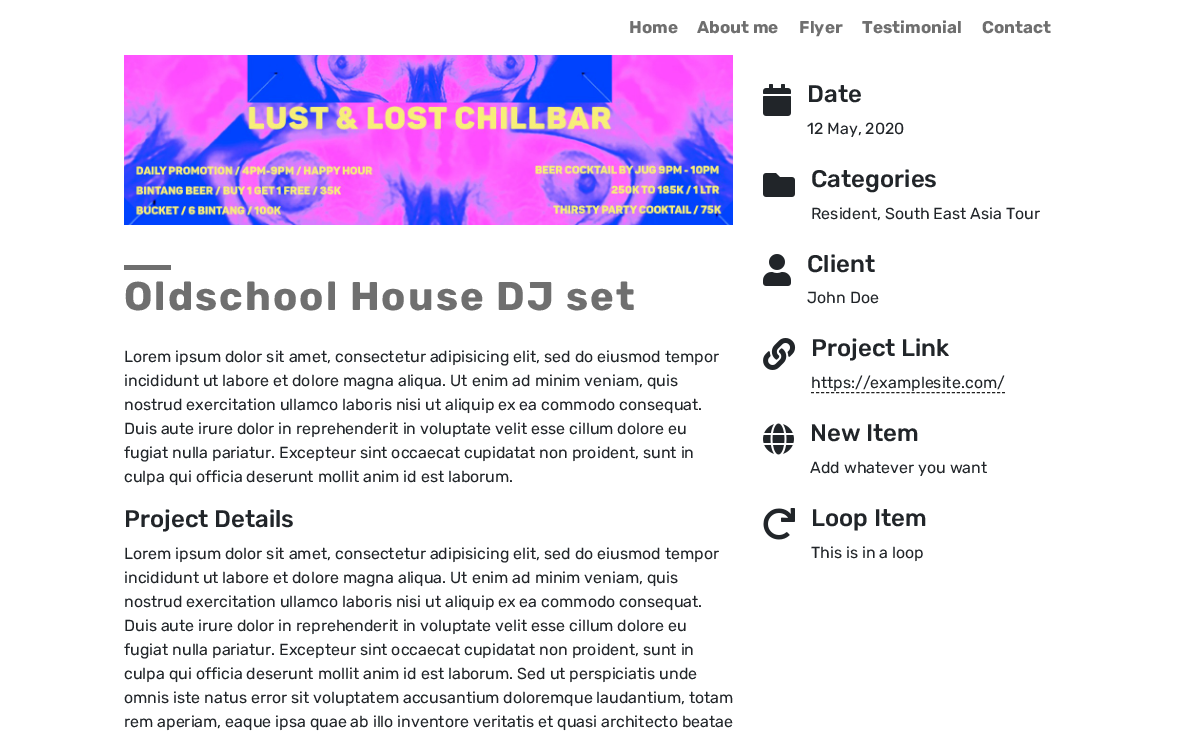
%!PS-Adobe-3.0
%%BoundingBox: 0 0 1177 743
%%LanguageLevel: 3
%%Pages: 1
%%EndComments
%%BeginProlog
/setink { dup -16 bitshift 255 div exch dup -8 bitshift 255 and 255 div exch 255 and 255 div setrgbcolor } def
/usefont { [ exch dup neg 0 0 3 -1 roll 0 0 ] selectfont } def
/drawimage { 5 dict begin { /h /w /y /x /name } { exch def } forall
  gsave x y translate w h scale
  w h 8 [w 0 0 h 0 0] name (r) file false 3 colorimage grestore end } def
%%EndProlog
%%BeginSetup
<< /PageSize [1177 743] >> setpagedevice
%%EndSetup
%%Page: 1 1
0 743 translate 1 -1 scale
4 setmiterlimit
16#FFFFFF setink
0 0 1177 743 rectfill
/Rubik-Bold 17 usefont
16#6F6F6F setink
[
    [(Home) 629 33]
    [(About me) 697 33]
    [(Flyer) 799 33]
    [(Testimonial) 862 33]
    [(Contact) 982 33]
] { aload pop moveto show } forall
(img1.raw) 124 55 609 170 drawimage
124 265 47 5 rectfill
/Rubik-Bold 40 usefont
124 310 moveto 2 0 (Oldschool House DJ set) ashow
/Rubik-Regular 16 usefont
16#212529 setink
[
    [(Lorem ipsum dolor sit amet, consectetur adipisicing elit, sed do eiusmod tempor) 124 362]
    [(incididunt ut labore et dolore magna aliqua. Ut enim ad minim veniam, quis) 124 386]
    [(nostrud exercitation ullamco laboris nisi ut aliquip ex ea commodo consequat.) 124 410]
    [(Duis aute irure dolor in reprehenderit in voluptate velit esse cillum dolore eu) 124 434]
    [(fugiat nulla pariatur. Excepteur sint occaecat cupidatat non proident, sunt in) 124 458]
    [(culpa qui officia deserunt mollit anim id est laborum.) 124 482]
] { aload pop moveto show } forall
/Rubik-Medium 24 usefont
124 527 moveto (Project Details) show
/Rubik-Regular 16 usefont
[
    [(Lorem ipsum dolor sit amet, consectetur adipisicing elit, sed do eiusmod tempor) 124 559]
    [(incididunt ut labore et dolore magna aliqua. Ut enim ad minim veniam, quis) 124 583]
    [(nostrud exercitation ullamco laboris nisi ut aliquip ex ea commodo consequat.) 124 607]
    [(Duis aute irure dolor in reprehenderit in voluptate velit esse cillum dolore eu) 124 631]
    [(fugiat nulla pariatur. Excepteur sint occaecat cupidatat non proident, sunt in) 124 655]
    [(culpa qui officia deserunt mollit anim id est laborum. Sed ut perspiciatis unde) 124 679]
    [(omnis iste natus error sit voluptatem accusantium doloremque laudantium, totam) 124 703]
    [(rem aperiam, eaque ipsa quae ab illo inventore veritatis et quasi architecto beatae) 124 727]
] { aload pop moveto show } forall
(img2.raw) 763 84 28 32 drawimage
/Rubik-Medium 24 usefont
807 102 moveto (Date) show
/Rubik-Regular 16 usefont
807 134 moveto (12 May, 2020) show
(img3.raw) 763 173 32 24 drawimage
/Rubik-Medium 24 usefont
811 187 moveto (Categories) show
/Rubik-Regular 16 usefont
811 219 moveto (Resident, South East Asia Tour) show
(img4.raw) 763 254 28 32 drawimage
/Rubik-Medium 24 usefont
807 272 moveto (Client) show
/Rubik-Regular 16 usefont
807 303 moveto (John Doe) show
(img5.raw) 763 338 33 32 drawimage
/Rubik-Medium 24 usefont
811 356 moveto (Project Link) show
/Rubik-Regular 16 usefont
811 388 moveto (https://examplesite.com/) show
16#212121 setink
[3 2.03] 0 setdash
811 392.5 moveto 1005 392.5 lineto stroke
(img6.raw) 763 423 31 32 drawimage
/Rubik-Medium 24 usefont
16#212529 setink
810 441 moveto (New Item) show
/Rubik-Regular 16 usefont
810 473 moveto (Add whatever you want) show
(img7.raw) 763 508 32 32 drawimage
/Rubik-Medium 24 usefont
811 526 moveto (Loop Item) show
/Rubik-Regular 16 usefont
811 558 moveto (This is in a loop) show
showpage
%%EOF
